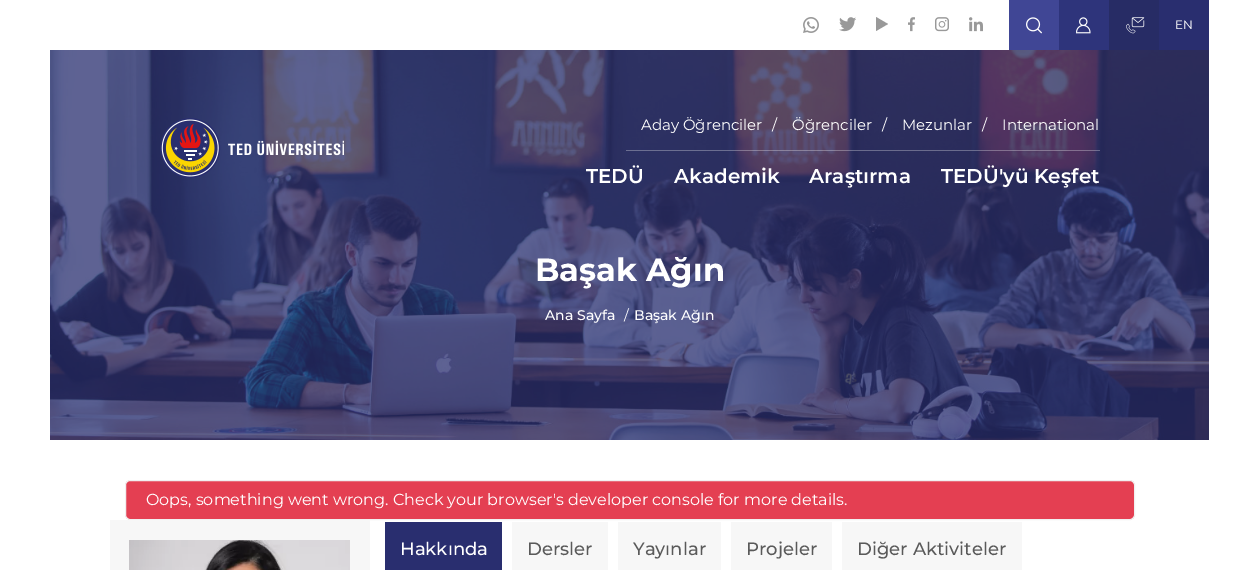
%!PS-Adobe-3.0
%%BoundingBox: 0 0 1259 570
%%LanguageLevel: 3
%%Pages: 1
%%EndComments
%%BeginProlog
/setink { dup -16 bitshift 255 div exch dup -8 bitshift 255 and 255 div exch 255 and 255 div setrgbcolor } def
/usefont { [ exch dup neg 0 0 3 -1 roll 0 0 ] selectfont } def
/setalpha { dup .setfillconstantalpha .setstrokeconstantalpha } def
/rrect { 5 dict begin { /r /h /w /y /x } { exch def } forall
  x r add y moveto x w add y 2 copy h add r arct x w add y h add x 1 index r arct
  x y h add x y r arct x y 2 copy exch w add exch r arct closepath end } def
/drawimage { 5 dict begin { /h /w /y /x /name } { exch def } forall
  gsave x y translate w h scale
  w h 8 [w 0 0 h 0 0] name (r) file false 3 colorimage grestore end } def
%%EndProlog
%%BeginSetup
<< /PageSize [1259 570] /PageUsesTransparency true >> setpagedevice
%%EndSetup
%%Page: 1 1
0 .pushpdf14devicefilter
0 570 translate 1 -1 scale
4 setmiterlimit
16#FFFFFF setink
0 0 1259 570 rectfill
(img1.raw) 803 17 16 16 drawimage
(img2.raw) 839 17 17 15 drawimage
16#999999 setink
876 31 moveto 876 17 lineto 888 24 lineto closepath fill
(img3.raw) 908 17 7 15 drawimage
(img4.raw) 935 17 14 15 drawimage
(img5.raw) 969 17 14 15 drawimage
16#404695 setink
1009 0 50 50 rectfill
(img6.raw) 1026 17 16 17 drawimage
16#2E347B setink
1059 0 50 50 rectfill
(img7.raw) 1076 17 15 17 drawimage
16#272C65 setink
1109 0 50 50 rectfill
(img8.raw) 1126 17 19 17 drawimage
16#292E6F setink
1159 0 50 50 rectfill
/Montserrat-Regular 12 usefont
16#FFFFFF setink
1175 29 moveto (EN) show
(img10.raw) 50 50 1159 390 drawimage
(img9.raw) 160 118 184 60 drawimage
0.3 setalpha
626 150 474 1 rectfill
/Montserrat-Regular 15 usefont
1 setalpha
[
    [(Aday Öğrenciler) 641 130]
    [(/) 772 130]
    [(Öğrenciler) 792 130]
    [(/) 882 130]
    [(Mezunlar) 902 130]
    [(/) 982 130]
    [(International) 1002 130]
] { aload pop moveto show } forall
/Montserrat-SemiBold 20 usefont
[
    [(TEDÜ) 586 183]
    [(Akademik) 674 183]
    [(Araştırma) 809 183]
    [(TEDÜ'yü Keşfet) 941 183]
] { aload pop moveto show } forall
/Montserrat-Bold 32 usefont
535 281 moveto (Başak Ağın) show
/Montserrat-Medium 14 usefont
545 320 moveto (Ana Sayfa) show
/Montserrat-Regular 14 usefont
624 320 moveto (/) show
/Montserrat-Medium 14 usefont
634 320 moveto (Başak Ağın) show
16#E43F52 setink
125.5 480.5 1009 39 4.5 rrect gsave fill grestore
16#F0F0F0 setink
stroke
/Montserrat-Regular 16 usefont
16#FFFFFF setink
146 505 moveto (Oops, something went wrong. Check your browser's developer console for more details.) show
16#F7F7F7 setink
110 520 260 50 rectfill
(img11.raw) 129 540 221 30 drawimage
16#292E6F setink
385 522 117 48 rectfill
/Montserrat-Medium 18 usefont
16#FFFFFF setink
400 555 moveto (Hakkında) show
16#F7F7F7 setink
512 522 96 48 rectfill
16#5A5A5A setink
527 555 moveto (Dersler) show
16#F7F7F7 setink
618 522 103 48 rectfill
16#5A5A5A setink
633 555 moveto (Yayınlar) show
16#F7F7F7 setink
731 522 101 48 rectfill
16#5A5A5A setink
746 555 moveto (Projeler) show
16#F7F7F7 setink
842 522 180 48 rectfill
16#5A5A5A setink
857 555 moveto (Diğer Aktiviteler) show
.poppdf14devicefilter showpage
%%EOF
